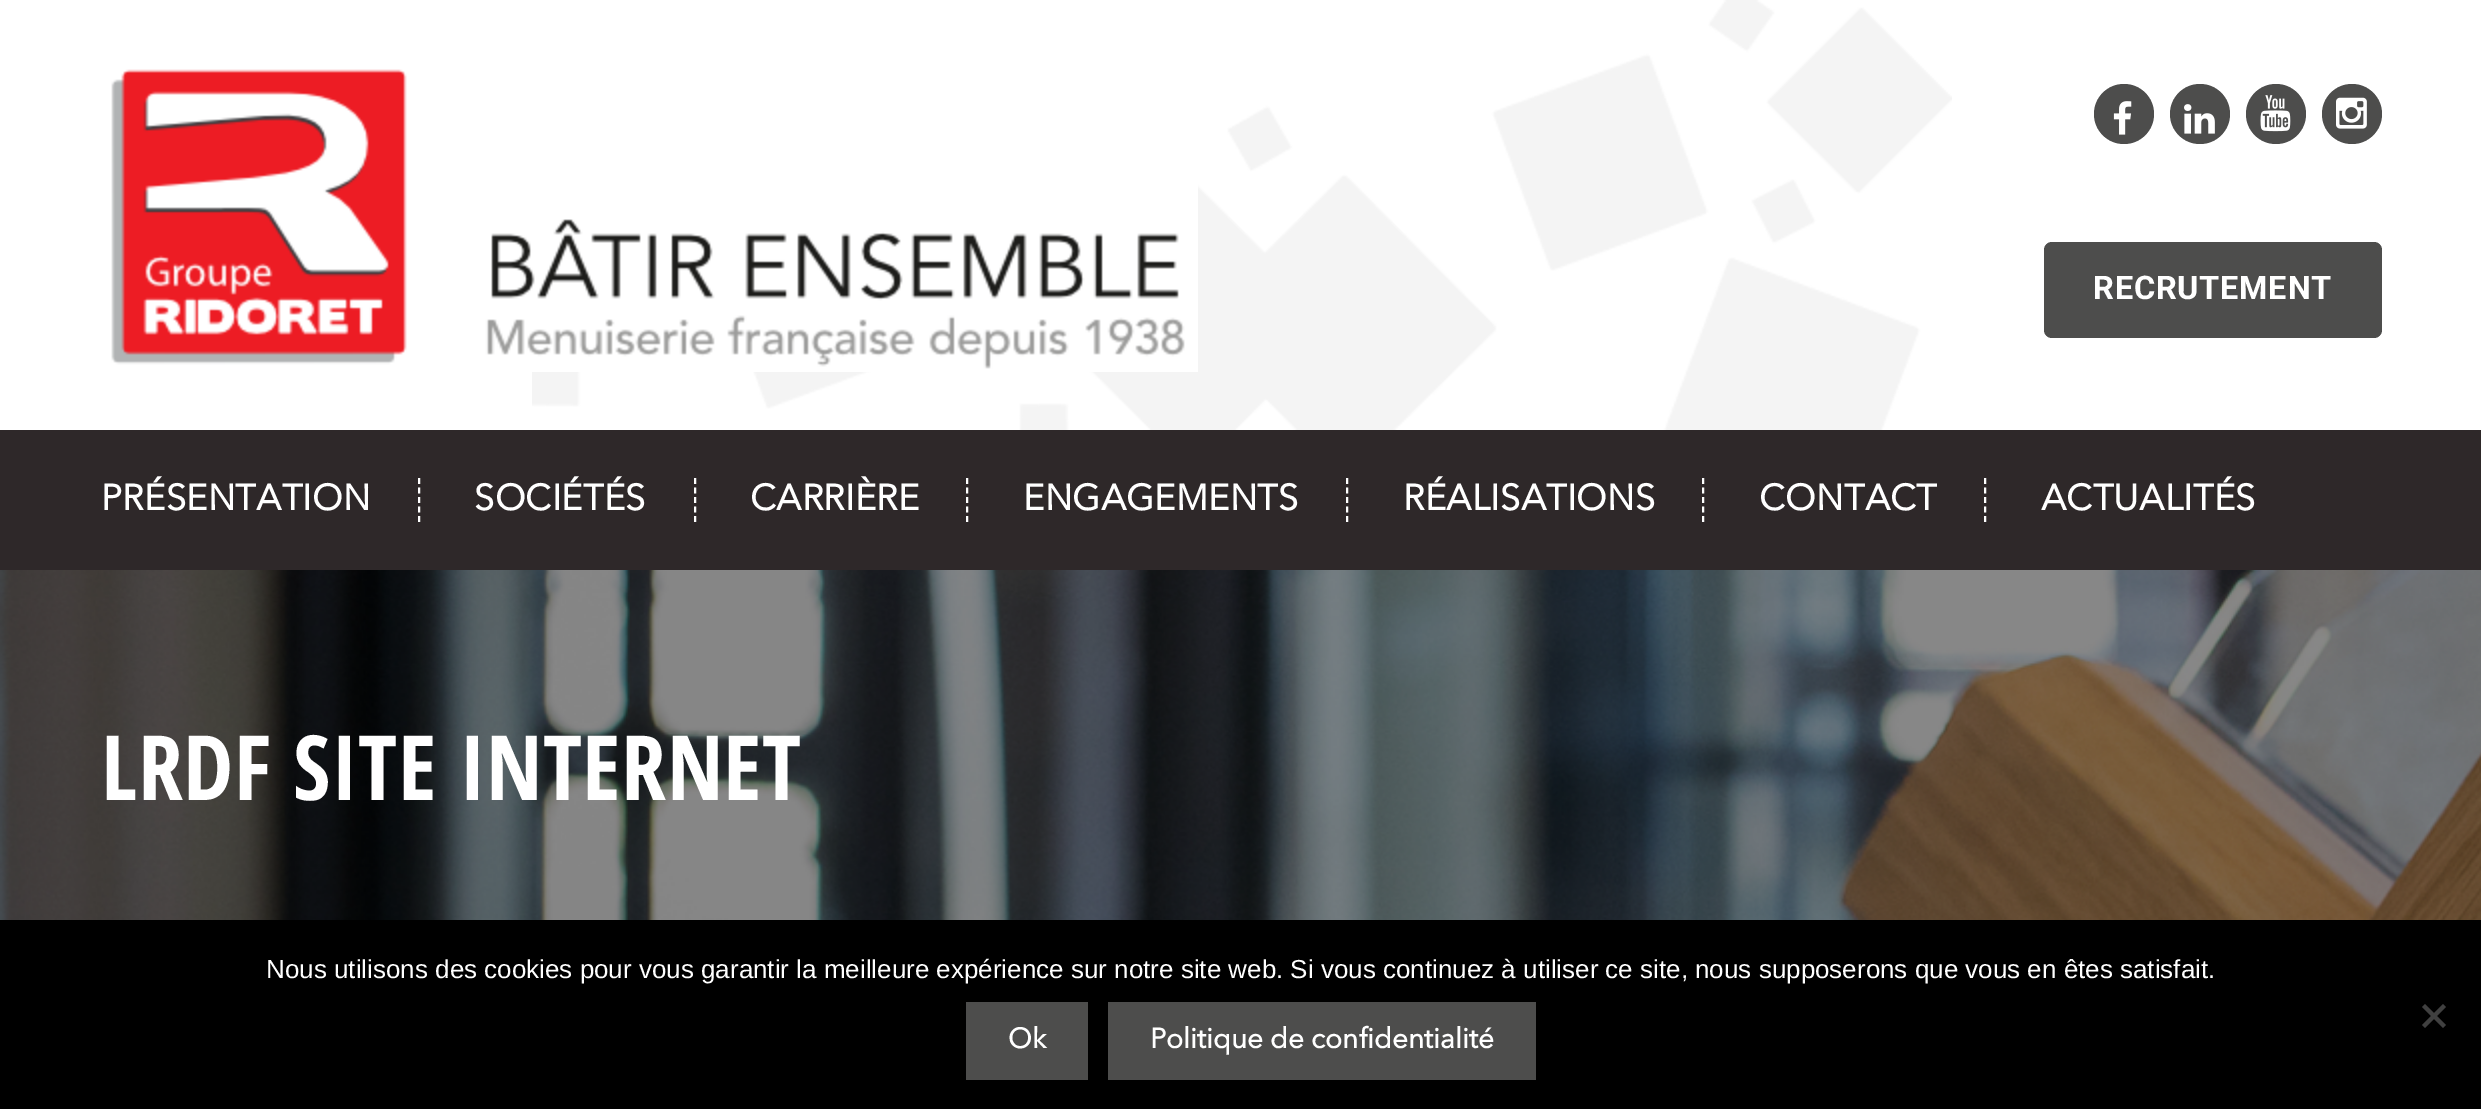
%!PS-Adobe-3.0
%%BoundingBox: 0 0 2481 1109
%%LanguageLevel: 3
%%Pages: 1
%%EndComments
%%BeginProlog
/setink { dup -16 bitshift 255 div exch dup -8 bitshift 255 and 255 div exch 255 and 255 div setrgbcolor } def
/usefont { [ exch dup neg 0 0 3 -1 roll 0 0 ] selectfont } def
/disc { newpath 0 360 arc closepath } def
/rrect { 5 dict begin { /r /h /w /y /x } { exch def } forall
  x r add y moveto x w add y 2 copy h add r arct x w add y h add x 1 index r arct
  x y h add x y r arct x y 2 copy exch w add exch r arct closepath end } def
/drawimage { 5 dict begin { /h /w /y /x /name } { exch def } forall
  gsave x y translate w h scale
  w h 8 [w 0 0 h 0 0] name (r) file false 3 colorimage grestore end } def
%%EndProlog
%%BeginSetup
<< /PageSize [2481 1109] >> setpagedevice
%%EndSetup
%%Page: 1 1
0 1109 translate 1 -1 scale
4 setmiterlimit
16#FFFFFF setink
0 0 2481 1109 rectfill
(img1.raw) 532 0 1420 430 drawimage
(img2.raw) 111 69 1087 303 drawimage
16#4D4D4C setink
2124 114 30 disc fill
(img3.raw) 2113 101 19 34 drawimage
2200 114 30 disc fill
(img4.raw) 2184 104 31 30 drawimage
2276 114 30 disc fill
(img5.raw) 2260 95 31 37 drawimage
2352 114 30 disc fill
(img6.raw) 2336 97 31 32 drawimage
2044 242 338 96 8 rrect fill
/Roboto-Bold 32.5 usefont
16#FFFFFF setink
2093 299 moveto 0.75 0 (RECRUTEMENT) ashow
16#2E2829 setink
0 430 2481 140 rectfill
16#FFFFFF setink
2 setlinewidth
[6 3.5] 0 setdash
419 478 moveto 419 522 lineto stroke
/AvenirNext-Bold 36 usefont
101 510 moveto 0.25 0 (PRÉSENTATION) ashow
695 478 moveto 695 522 lineto stroke
474 510 moveto 0.25 0 (SOCIÉTÉS) ashow
967 478 moveto 967 522 lineto stroke
750 510 moveto 0.25 0 (CARRIÈRE) ashow
1347 478 moveto 1347 522 lineto stroke
1023 510 moveto 0.25 0 (ENGAGEMENTS) ashow
1703 478 moveto 1703 522 lineto stroke
1403 510 moveto 0.25 0 (RÉALISATIONS) ashow
1985 478 moveto 1985 522 lineto stroke
1759 510 moveto 0.25 0 (CONTACT) ashow
2041 510 moveto 0.25 0 (ACTUALITÉS) ashow
(img7.raw) 0 570 2481 350 drawimage
/OpenSansCondensed-Bold 90 usefont
101 800 moveto 0.4 0 (LRDF SITE INTERNET) ashow
16#000000 setink
0 920 2481 189 rectfill
/LiberationSans-Regular 26 usefont
16#FFFFFF setink
266 978 moveto (Nous utilisons des cookies pour vous garantir la meilleure expérience sur notre site web. Si vous continuez à utiliser ce site, nous supposerons que vous en êtes satisfait.) show
16#404040 setink
2443 1004 moveto 2446 1007 lineto 2425 1028 lineto 2422 1025 lineto closepath fill
2422 1007 moveto 2425 1004 lineto 2446 1025 lineto 2443 1028 lineto closepath fill
16#4D4D4C setink
966 1002 122 78 rectfill
/AvenirNext-Bold 28 usefont
16#FFFFFF setink
1008 1048 moveto (Ok) show
16#4D4D4C setink
1108 1002 428 78 rectfill
16#FFFFFF setink
1150 1048 moveto (Politique de confidentialité) show
showpage
%%EOF
